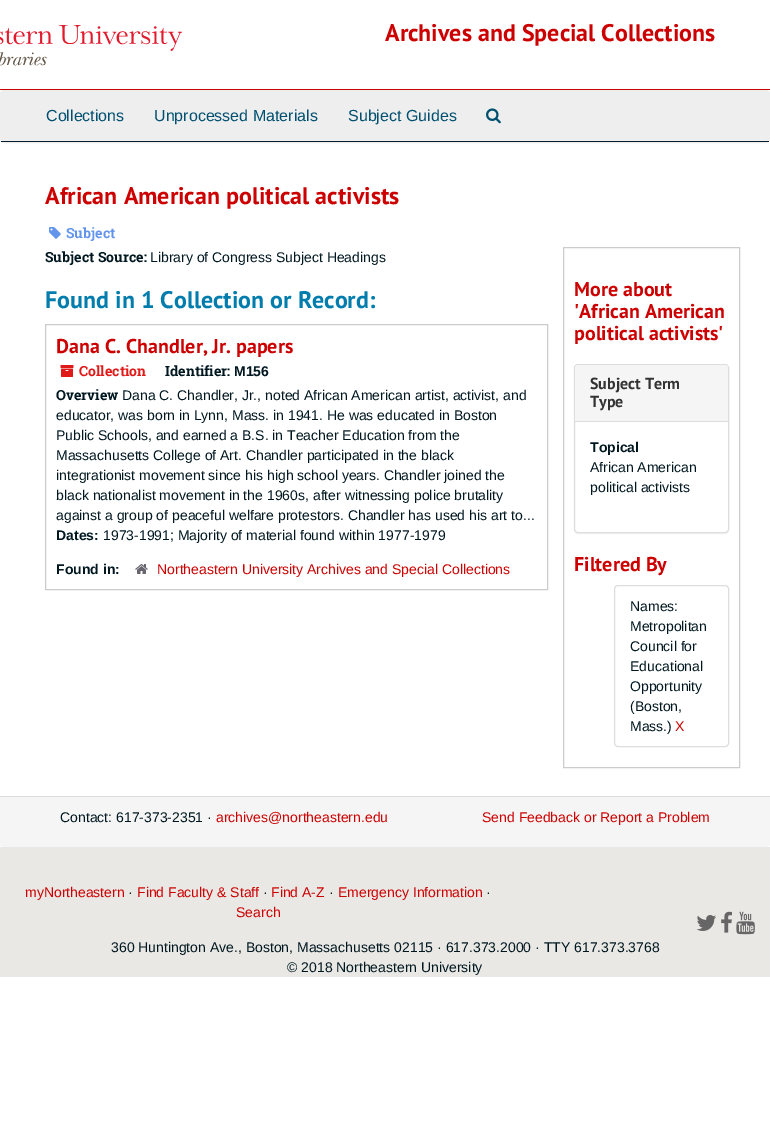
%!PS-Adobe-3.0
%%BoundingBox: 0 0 770 1126
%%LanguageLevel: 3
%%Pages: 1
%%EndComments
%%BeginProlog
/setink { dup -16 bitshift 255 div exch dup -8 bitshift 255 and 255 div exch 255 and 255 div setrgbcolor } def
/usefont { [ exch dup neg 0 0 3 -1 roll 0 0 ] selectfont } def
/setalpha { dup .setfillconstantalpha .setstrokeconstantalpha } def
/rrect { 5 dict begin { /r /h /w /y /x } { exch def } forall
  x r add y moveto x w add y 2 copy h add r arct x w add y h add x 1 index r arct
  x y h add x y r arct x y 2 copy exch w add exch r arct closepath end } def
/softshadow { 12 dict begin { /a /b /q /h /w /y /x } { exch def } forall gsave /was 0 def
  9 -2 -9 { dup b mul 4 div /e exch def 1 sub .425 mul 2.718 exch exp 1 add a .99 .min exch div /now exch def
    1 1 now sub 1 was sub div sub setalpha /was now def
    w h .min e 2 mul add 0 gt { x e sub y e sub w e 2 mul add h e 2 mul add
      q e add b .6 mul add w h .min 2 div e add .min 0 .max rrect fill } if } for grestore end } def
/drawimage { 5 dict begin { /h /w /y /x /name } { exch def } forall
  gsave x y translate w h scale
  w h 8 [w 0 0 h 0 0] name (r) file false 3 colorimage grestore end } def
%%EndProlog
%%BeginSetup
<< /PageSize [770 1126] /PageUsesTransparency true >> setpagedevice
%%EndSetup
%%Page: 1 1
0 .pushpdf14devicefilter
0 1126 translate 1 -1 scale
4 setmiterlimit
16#FFFFFF setink
0 0 770 1126 rectfill
16#CC0000 setink
0 89 770 1 rectfill
(img1.raw) 0 25 182 41 drawimage
/PTSans-Bold 24 usefont
385 41 moveto (Archives and Special Collections) show
16#EEEEEE setink
0.5 90.5 769 52 3.5 rrect gsave fill grestore
stroke
16#041C2F setink
1 141 768 1 rectfill
/LiberationSans-Regular 16 usefont
16#004F6F setink
[
    [(Collections) 46 121]
    [(Unprocessed Materials) 154 121]
    [(Subject Guides) 348 121]
] { aload pop moveto show } forall
(img2.raw) 486 108 15 16 drawimage
/PTSans-Bold 24 usefont
16#CC0000 setink
45 204 moveto (African American political activists) show
(img3.raw) 49 227 12 12 drawimage
/RobotoSlab-Bold 14 usefont
16#6495ED setink
66 238 moveto (Subject) show
16#00171F setink
45 262 moveto (Subject Source:) show
/LiberationSans-Regular 14 usefont
150 262 moveto (Library of Congress Subject Headings) show
/PTSans-Bold 24 usefont
16#007CAD setink
45 308 moveto (Found in 1 Collection or Record:) show
16#CCCCCC setink
45.5 324.5 502 265 rectstroke
/PTSans-Bold 20 usefont
16#CC0000 setink
56 353 moveto (Dana C. Chandler, Jr. papers) show
(img4.raw) 60 365 14 12 drawimage
/RobotoSlab-Bold 14 usefont
16#E01919 setink
79 376 moveto (Collection) show
16#00171F setink
165 376 moveto (Identifier:) show
/LiberationSans-Bold 14 usefont
234 376 moveto (M156) show
/RobotoSlab-Bold 14 usefont
56 400 moveto (Overview) show
/LiberationSans-Regular 14 usefont
[
    [(Dana C. Chandler, Jr., noted African American artist, activist, and) 122 400]
    [(educator, was born in Lynn, Mass. in 1941. He was educated in Boston) 56 420]
    [(Public Schools, and earned a B.S. in Teacher Education from the) 56 440]
    [(Massachusetts College of Art. Chandler participated in the black) 56 460]
    [(integrationist movement since his high school years. Chandler joined the) 56 480]
    [(black nationalist movement in the 1960s, after witnessing police brutality) 56 500]
    [(against a group of peaceful welfare protestors. Chandler has used his art to...) 56 520]
] { aload pop moveto show } forall
/LiberationSans-Bold 14 usefont
56 540 moveto (Dates:) show
/LiberationSans-Regular 14 usefont
103 540 moveto (1973-1991; Majority of material found within 1977-1979) show
/LiberationSans-Bold 14 usefont
56 574 moveto (Found in:) show
(img5.raw) 135 564 13 10 drawimage
/LiberationSans-Regular 14 usefont
16#CC0000 setink
157 574 moveto (Northeastern University Archives and Special Collections) show
16#CCCCCC setink
563.5 247.5 176 520 rectstroke
/PTSans-Bold 20 usefont
16#CC0000 setink
[
    [(More about) 574 296]
    [('African American) 574 318]
    [(political activists') 574 340]
] { aload pop moveto show } forall
16#000000 setink
574 365 155 169 4 0.5 0.05 softshadow
16#FFFFFF setink
574.5 364.5 154 168 3.5 rrect gsave fill grestore
16#DDDDDD setink
stroke
16#F5F5F5 setink
578 365 moveto 725 365 lineto 726.5 365 728 366.5 728 368 curveto 728 421 lineto 575 421 lineto 575 368 lineto 575 366.5 576.5 365 578 365 curveto closepath fill
/PTSans-Bold 16 usefont
16#333333 setink
590 389 moveto (Subject Term) show
590 407 moveto (Type) show
16#DDDDDD setink
575 421 153 1 rectfill
/LiberationSans-Bold 14 usefont
16#00171F setink
590 452 moveto (Topical) show
/LiberationSans-Regular 14 usefont
590 472 moveto (African American) show
590 492 moveto (political activists) show
/PTSans-Bold 20 usefont
16#CC0000 setink
574 571 moveto (Filtered By) show
16#DDDDDD setink
614.5 585.5 114 161 3.5 rrect stroke
/LiberationSans-Regular 14 usefont
16#00171F setink
[
    [(Names:) 630 611]
    [(Metropolitan) 630 631]
    [(Council for) 630 651]
    [(Educational) 630 671]
    [(Opportunity) 630 691]
    [(\(Boston,) 630 711]
    [(Mass.\)) 630 731]
] { aload pop moveto show } forall
16#CC0000 setink
675 731 moveto (X) show
16#F5F5F5 setink
0 796 moveto 770 796 lineto 770 844 lineto 770 845.5 768.5 847 767 847 curveto 3 847 lineto 1.5 847 0 845.5 0 844 curveto closepath fill
16#DDDDDD setink
0 796 770 1 rectfill
16#00171F setink
60 822 moveto (Contact: 617-373-2351 ·) show
16#CC0000 setink
216 822 moveto (archives@northeastern.edu) show
482 822 moveto (Send Feedback or Report a Problem) show
16#E9E8E5 setink
0 847 770 130 rectfill
16#CC0000 setink
25 897 moveto (myNortheastern) show
16#00171F setink
128 897 moveto (·) show
16#CC0000 setink
137 897 moveto (Find Faculty & Staff) show
16#00171F setink
263 897 moveto (·) show
16#CC0000 setink
271 897 moveto (Find A-Z) show
16#00171F setink
329 897 moveto (·) show
16#CC0000 setink
338 897 moveto (Emergency Information) show
16#00171F setink
486 897 moveto (·) show
16#CC0000 setink
236 917 moveto (Search) show
(img6.raw) 696 915 20 16 drawimage
(img7.raw) 721 911 11 22 drawimage
(img8.raw) 736 911 19 24 drawimage
16#00171F setink
111 952 moveto (360 Huntington Ave., Boston, Massachusetts 02115 · 617.373.2000 · TTY 617.373.3768) show
287 972 moveto (© 2018 Northeastern University) show
.poppdf14devicefilter showpage
%%EOF
